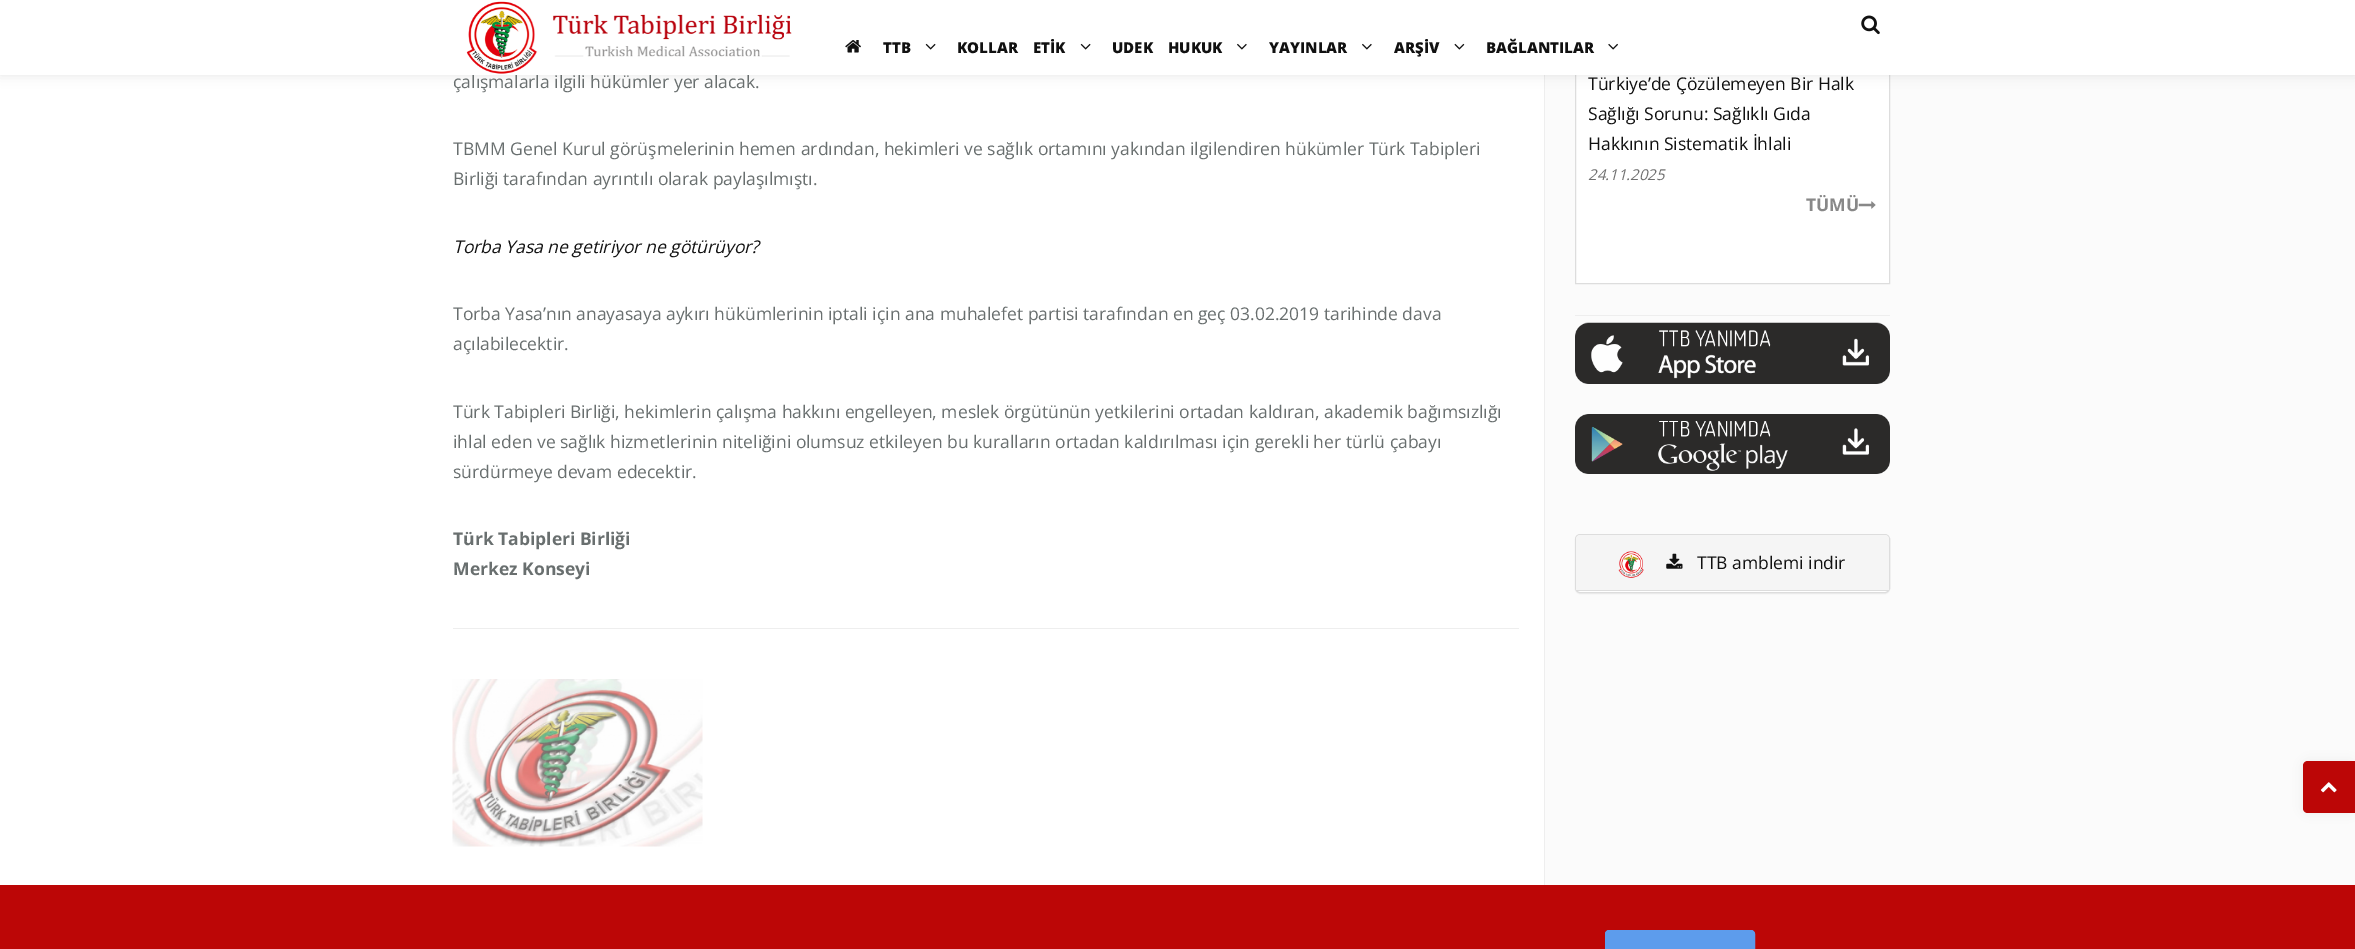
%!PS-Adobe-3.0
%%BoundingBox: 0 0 2355 949
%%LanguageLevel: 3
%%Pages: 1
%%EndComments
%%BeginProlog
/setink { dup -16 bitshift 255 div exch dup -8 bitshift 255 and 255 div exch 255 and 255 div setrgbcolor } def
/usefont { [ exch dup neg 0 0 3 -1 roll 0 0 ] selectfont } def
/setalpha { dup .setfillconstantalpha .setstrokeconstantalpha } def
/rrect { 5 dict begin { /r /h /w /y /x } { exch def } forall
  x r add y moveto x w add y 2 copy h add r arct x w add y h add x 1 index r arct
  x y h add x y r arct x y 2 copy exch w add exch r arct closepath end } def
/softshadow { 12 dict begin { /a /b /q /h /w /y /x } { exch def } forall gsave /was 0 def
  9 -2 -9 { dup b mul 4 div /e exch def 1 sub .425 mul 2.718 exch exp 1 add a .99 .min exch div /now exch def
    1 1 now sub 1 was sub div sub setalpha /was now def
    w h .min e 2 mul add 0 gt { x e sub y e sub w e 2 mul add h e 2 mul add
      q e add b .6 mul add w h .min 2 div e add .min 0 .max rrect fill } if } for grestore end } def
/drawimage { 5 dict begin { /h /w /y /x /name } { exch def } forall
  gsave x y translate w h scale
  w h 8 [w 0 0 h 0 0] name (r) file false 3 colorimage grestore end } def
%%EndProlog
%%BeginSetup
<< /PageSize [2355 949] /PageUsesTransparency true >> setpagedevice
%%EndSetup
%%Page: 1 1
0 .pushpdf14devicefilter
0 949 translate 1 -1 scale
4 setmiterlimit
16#FFFFFF setink
0 0 2355 949 rectfill
[
    [1545 75 810 810 16#FBFBFB]
    [1544 75 1 810 16#EEEEEE]
    [1576 75 313 208 16#FFFFFF]
] { aload pop setink rectfill } forall
16#DDDDDD setink
1575.5 -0.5 314 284 rectstroke
16#000000 setink
0 0 2355 75 0 6 0.1 softshadow
/OpenSans-Regular 17.5 usefont
16#696F6F setink
453 88 moveto (çalışmalarla ilgili hükümler yer alacak.) show
16#FFFFFF setink
0 0 2355 75 rectfill
(img1.raw) 466 1 326 73 drawimage
(img2.raw) 1861 15 19 20 drawimage
(img3.raw) 845 40 16 13 drawimage
/OpenSans-ExtraBold 15 usefont
16#111111 setink
883 53 moveto (TTB) show
(img4.raw) 925 43 11 7 drawimage
957 53 moveto (KOLLAR) show
1033 53 moveto (ETİK) show
(img4.raw) 1080 43 11 7 drawimage
1112 53 moveto (UDEK) show
1168 53 moveto (HUKUK) show
(img5.raw) 1237 43 10 7 drawimage
1269 53 moveto (YAYINLAR) show
(img5.raw) 1362 43 10 7 drawimage
1394 53 moveto (ARŞİV) show
(img6.raw) 1454 43 11 7 drawimage
1486 53 moveto (BAĞLANTILAR) show
(img7.raw) 1608 43 10 7 drawimage
16#EEEEEE setink
453 628 1066 1 rectfill
/OpenSans-Regular 17.5 usefont
16#696F6F setink
453 155 moveto (TBMM Genel Kurul görüşmelerinin hemen ardından, hekimleri ve sağlık ortamını yakından ilgilendiren hükümler Türk Tabipleri) show
453 185 moveto (Birliği tarafından ayrıntılı olarak paylaşılmıştı.) show
/OpenSans-Italic 17.5 usefont
16#111111 setink
453 253 moveto (Torba Yasa ne getiriyor ne götürüyor?) show
/OpenSans-Regular 17.5 usefont
16#696F6F setink
[
    [(Torba Yasa’nın anayasaya aykırı hükümlerinin iptali için ana muhalefet partisi tarafından en geç 03.02.2019 tarihinde dava) 453 320]
    [(açılabilecektir.) 453 350]
    [(Türk Tabipleri Birliği, hekimlerin çalışma hakkını engelleyen, meslek örgütünün yetkilerini ortadan kaldıran, akademik bağımsızlığı) 453 418]
    [(ihlal eden ve sağlık hizmetlerinin niteliğini olumsuz etkileyen bu kuralların ortadan kaldırılması için gerekli her türlü çabayı) 453 448]
    [(sürdürmeye devam edecektir.) 453 478]
] { aload pop moveto show } forall
/OpenSans-Bold 17.5 usefont
453 545 moveto (Türk Tabipleri Birliği) show
453 575 moveto (Merkez Konseyi) show
(img8.raw) 452 679 251 168 drawimage
16#EEEEEE setink
1575 315 315 1 rectfill
/OpenSans-Regular 17.5 usefont
16#111111 setink
[
    [(Türkiye’de Çözülemeyen Bir Halk) 1588 90]
    [(Sağlığı Sorunu: Sağlıklı Gıda) 1588 120]
    [(Hakkının Sistematik İhlali) 1588 150]
] { aload pop moveto show } forall
/OpenSans-Italic 15 usefont
16#707070 setink
1588 180 moveto (24.11.2025) show
/OpenSans-Bold 17.5 usefont
16#888888 setink
1806 211 moveto (TÜMÜ) show
(img9.raw) 1858 201 18 8 drawimage
(img10.raw) 1575 322 315 62 drawimage
(img11.raw) 1575 414 315 60 drawimage
16#000000 setink
1575 535 315 59 5 0.5 0.05 softshadow
16#FFFFFF setink
1575.5 534.5 314 58 4.5 rrect gsave fill grestore
16#DDDDDD setink
stroke
16#F5F5F5 setink
1580 535 moveto 1885 535 lineto 1887 535 1889 537 1889 539 curveto 1889 591 lineto 1576 591 lineto 1576 539 lineto 1576 537 1578 535 1580 535 curveto closepath fill
16#DDDDDD setink
1576 590 313 1 rectfill
(img12.raw) 1618 551 26 27 drawimage
(img13.raw) 1666 553 17 16 drawimage
/OpenSans-Regular 17.5 usefont
16#111111 setink
1697 569 moveto (TTB amblemi indir) show
16#BC0606 setink
0 885 2355 64 rectfill
16#5D9CEC setink
1605.5 930.5 149 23 3.5 rrect gsave fill grestore
stroke
16#000000 setink
2303 761 52 52 5 6 0.05 softshadow
16#BC0606 setink
2308 761 moveto 2355 761 lineto 2355 813 lineto 2308 813 lineto 2305 813 2303 811 2303 808 curveto 2303 766 lineto 2303 763 2305 761 2308 761 curveto closepath fill
(img14.raw) 2320 782 17 11 drawimage
.poppdf14devicefilter showpage
%%EOF
